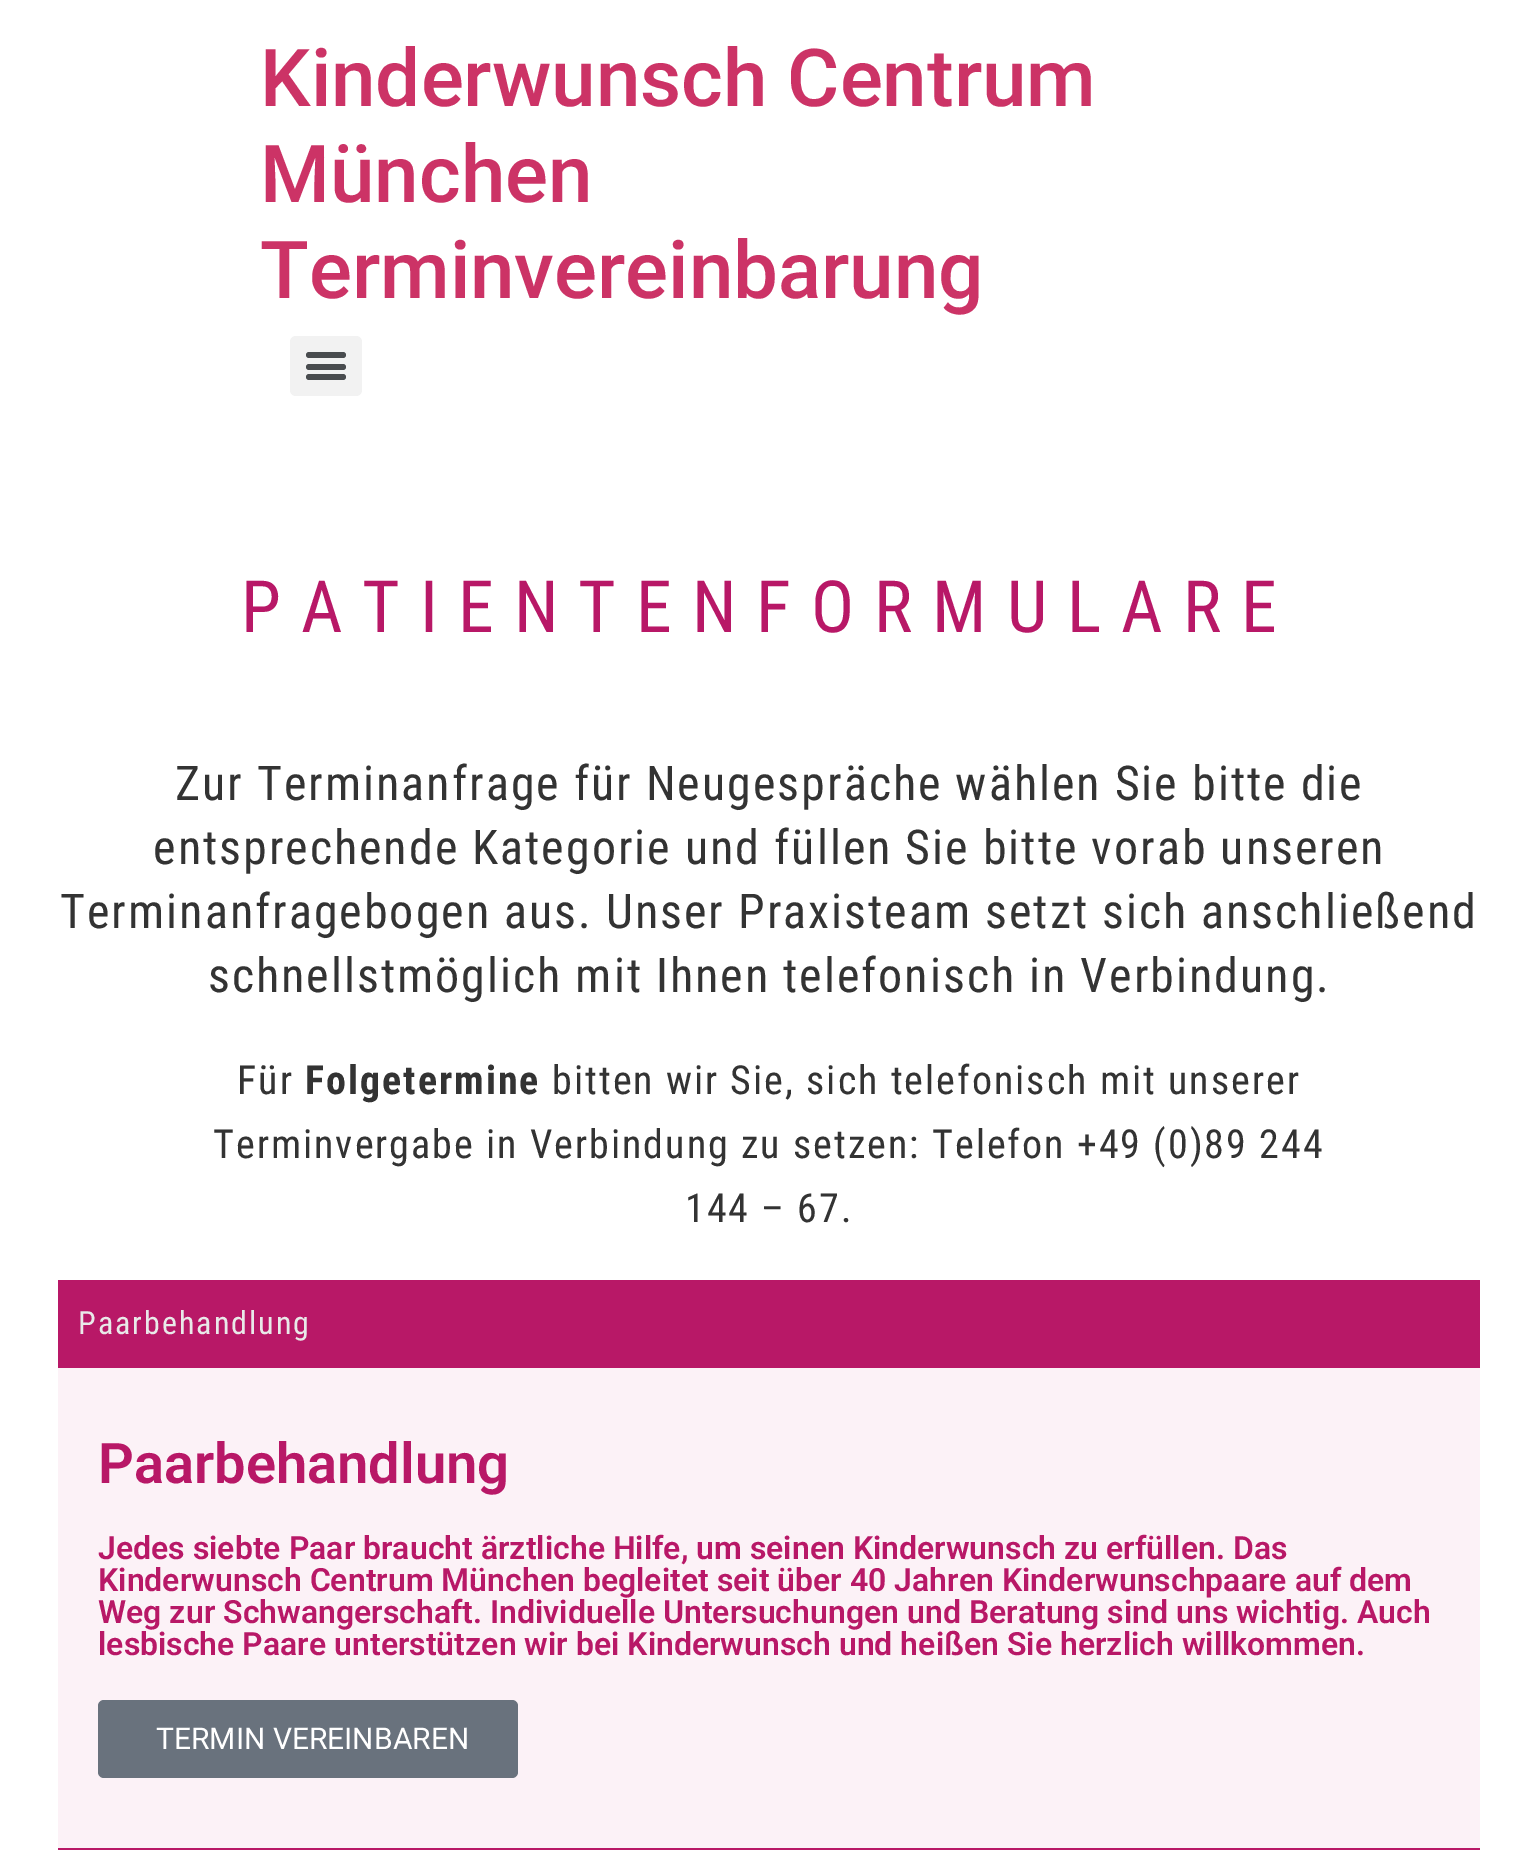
%!PS-Adobe-3.0
%%BoundingBox: 0 0 1520 1850
%%LanguageLevel: 3
%%Pages: 1
%%EndComments
%%BeginProlog
/setink { dup -16 bitshift 255 div exch dup -8 bitshift 255 and 255 div exch 255 and 255 div setrgbcolor } def
/usefont { [ exch dup neg 0 0 3 -1 roll 0 0 ] selectfont } def
/rrect { 5 dict begin { /r /h /w /y /x } { exch def } forall
  x r add y moveto x w add y 2 copy h add r arct x w add y h add x 1 index r arct
  x y h add x y r arct x y 2 copy exch w add exch r arct closepath end } def
%%EndProlog
%%BeginSetup
<< /PageSize [1520 1850] >> setpagedevice
%%EndSetup
%%Page: 1 1
0 1850 translate 1 -1 scale
4 setmiterlimit
16#FFFFFF setink
0 0 1520 1850 rectfill
/Roboto-Medium 80 usefont
16#CC3366 setink
[
    [(Kinderwunsch Centrum) 260 106]
    [(München) 260 202]
    [(Terminvereinbarung) 260 298]
] { aload pop moveto show } forall
16#F2F2F2 setink
290 336 72 60 6 rrect fill
16#494C4F setink
306 364 40 6 3 rrect fill
306 352 40 6 3 rrect fill
306 374 40 6 3 rrect fill
/RobotoCondensed-Regular 72 usefont
16#B81867 setink
241 632 moveto 20 0 (PATIENTENFORMULARE) ashow
/RobotoCondensed-Regular 48 usefont
16#333333 setink
175 800 moveto 2 0 (Zur Terminanfrage für Neugespräche wählen Sie bitte die) ashow
153 864 moveto 2 0 (entsprechende Kategorie und füllen Sie bitte vorab unseren) ashow
60 928 moveto 2 0 (Terminanfragebogen aus. Unser Praxisteam setzt sich anschließend) ashow
208 992 moveto 2 0 (schnellstmöglich mit Ihnen telefonisch in Verbindung.) ashow
/RobotoCondensed-Regular 40 usefont
237 1094 moveto 2 0 (Für) ashow
/RobotoCondensed-Bold 40 usefont
305 1094 moveto 2 0 (Folgetermine) ashow
/RobotoCondensed-Regular 40 usefont
552 1094 moveto 2 0 (bitten wir Sie, sich telefonisch mit unserer) ashow
213 1158 moveto 2 0 (Terminvergabe in Verbindung zu setzen: Telefon +49 \(0\)89 244) ashow
685 1222 moveto 2 0 (144 – 67.) ashow
16#B81867 setink
58 1280 1422 88 rectfill
/RobotoCondensed-Regular 32 usefont
16#E9E9E9 setink
78 1334 moveto 2 0 (Paarbehandlung) ashow
16#FCF2F7 setink
58 1368 1422 480 rectfill
16#B81867 setink
58 1848 1422 2 rectfill
/Roboto-SemiBold 56 usefont
98 1483 moveto (Paarbehandlung) show
/Roboto-SemiBold 32 usefont
[
    [(Jedes siebte Paar braucht ärztliche Hilfe, um seinen Kinderwunsch zu erfüllen. Das) 98 1559]
    [(Kinderwunsch Centrum München begleitet seit über 40 Jahren Kinderwunschpaare auf dem) 98 1591]
    [(Weg zur Schwangerschaft. Individuelle Untersuchungen und Beratung sind uns wichtig. Auch) 98 1623]
    [(lesbische Paare unterstützen wir bei Kinderwunsch und heißen Sie herzlich willkommen.) 98 1655]
] { aload pop moveto show } forall
16#69727D setink
98 1700 420 78 6 rrect fill
/Roboto-Regular 30 usefont
16#FFFFFF setink
156 1749 moveto (TERMIN VEREINBAREN) show
showpage
%%EOF
